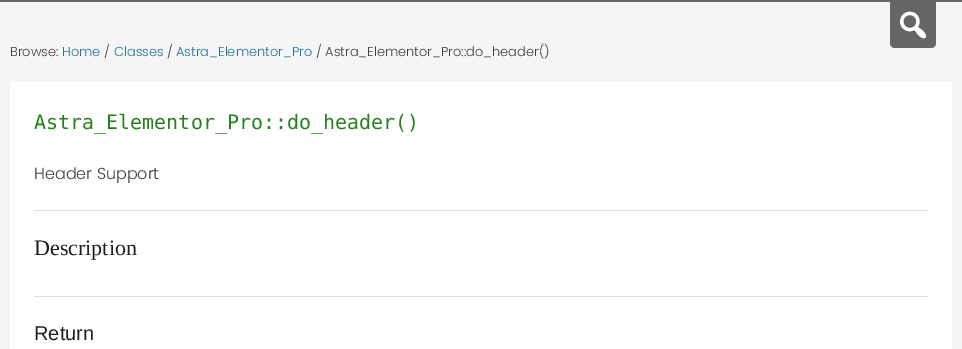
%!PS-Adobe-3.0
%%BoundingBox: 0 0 962 349
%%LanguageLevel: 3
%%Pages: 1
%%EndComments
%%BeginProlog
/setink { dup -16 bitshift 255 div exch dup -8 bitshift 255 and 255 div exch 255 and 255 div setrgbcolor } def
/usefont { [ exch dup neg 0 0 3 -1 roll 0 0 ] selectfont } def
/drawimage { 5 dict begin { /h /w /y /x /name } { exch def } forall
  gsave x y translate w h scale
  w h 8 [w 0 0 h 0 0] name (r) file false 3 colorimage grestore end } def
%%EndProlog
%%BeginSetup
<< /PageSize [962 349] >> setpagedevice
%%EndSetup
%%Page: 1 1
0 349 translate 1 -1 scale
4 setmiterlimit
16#F5F5F5 setink
0 0 962 349 rectfill
16#666666 setink
0 0 962 2 rectfill
890 2 moveto 936 2 lineto 936 43 lineto 936 46 934 48 931 48 curveto 895 48 lineto 892 48 890 46 890 43 curveto closepath fill
(img1.raw) 900 11 26 28 drawimage
/Poppins-Light 13 usefont
16#404040 setink
10 56 moveto (Browse:) show
16#21759B setink
62 56 moveto (Home) show
16#404040 setink
104 56 moveto (/) show
16#21759B setink
114 56 moveto (Classes) show
16#404040 setink
167 56 moveto (/) show
16#21759B setink
176 56 moveto (Astra_Elementor_Pro) show
16#404040 setink
316 56 moveto (/ Astra_Elementor_Pro::do_header\(\)) show
16#FFFFFF setink
10 82 942 267 rectfill
/DejaVuSansMono-Regular 20 usefont
16#24831D setink
34 129 moveto (Astra_Elementor_Pro::do_header\(\)) show
/Poppins-Light 16 usefont
16#404040 setink
34 179 moveto (Header Support) show
16#DFDFDF setink
34 210 894 1 rectfill
/LiberationSerif-Regular 22 usefont
16#1E1E1E setink
34 255 moveto (Description) show
16#DFDFDF setink
34 296 894 1 rectfill
/LiberationSans-Regular 20 usefont
16#1E1E1E setink
34 340 moveto (Return) show
showpage
%%EOF
